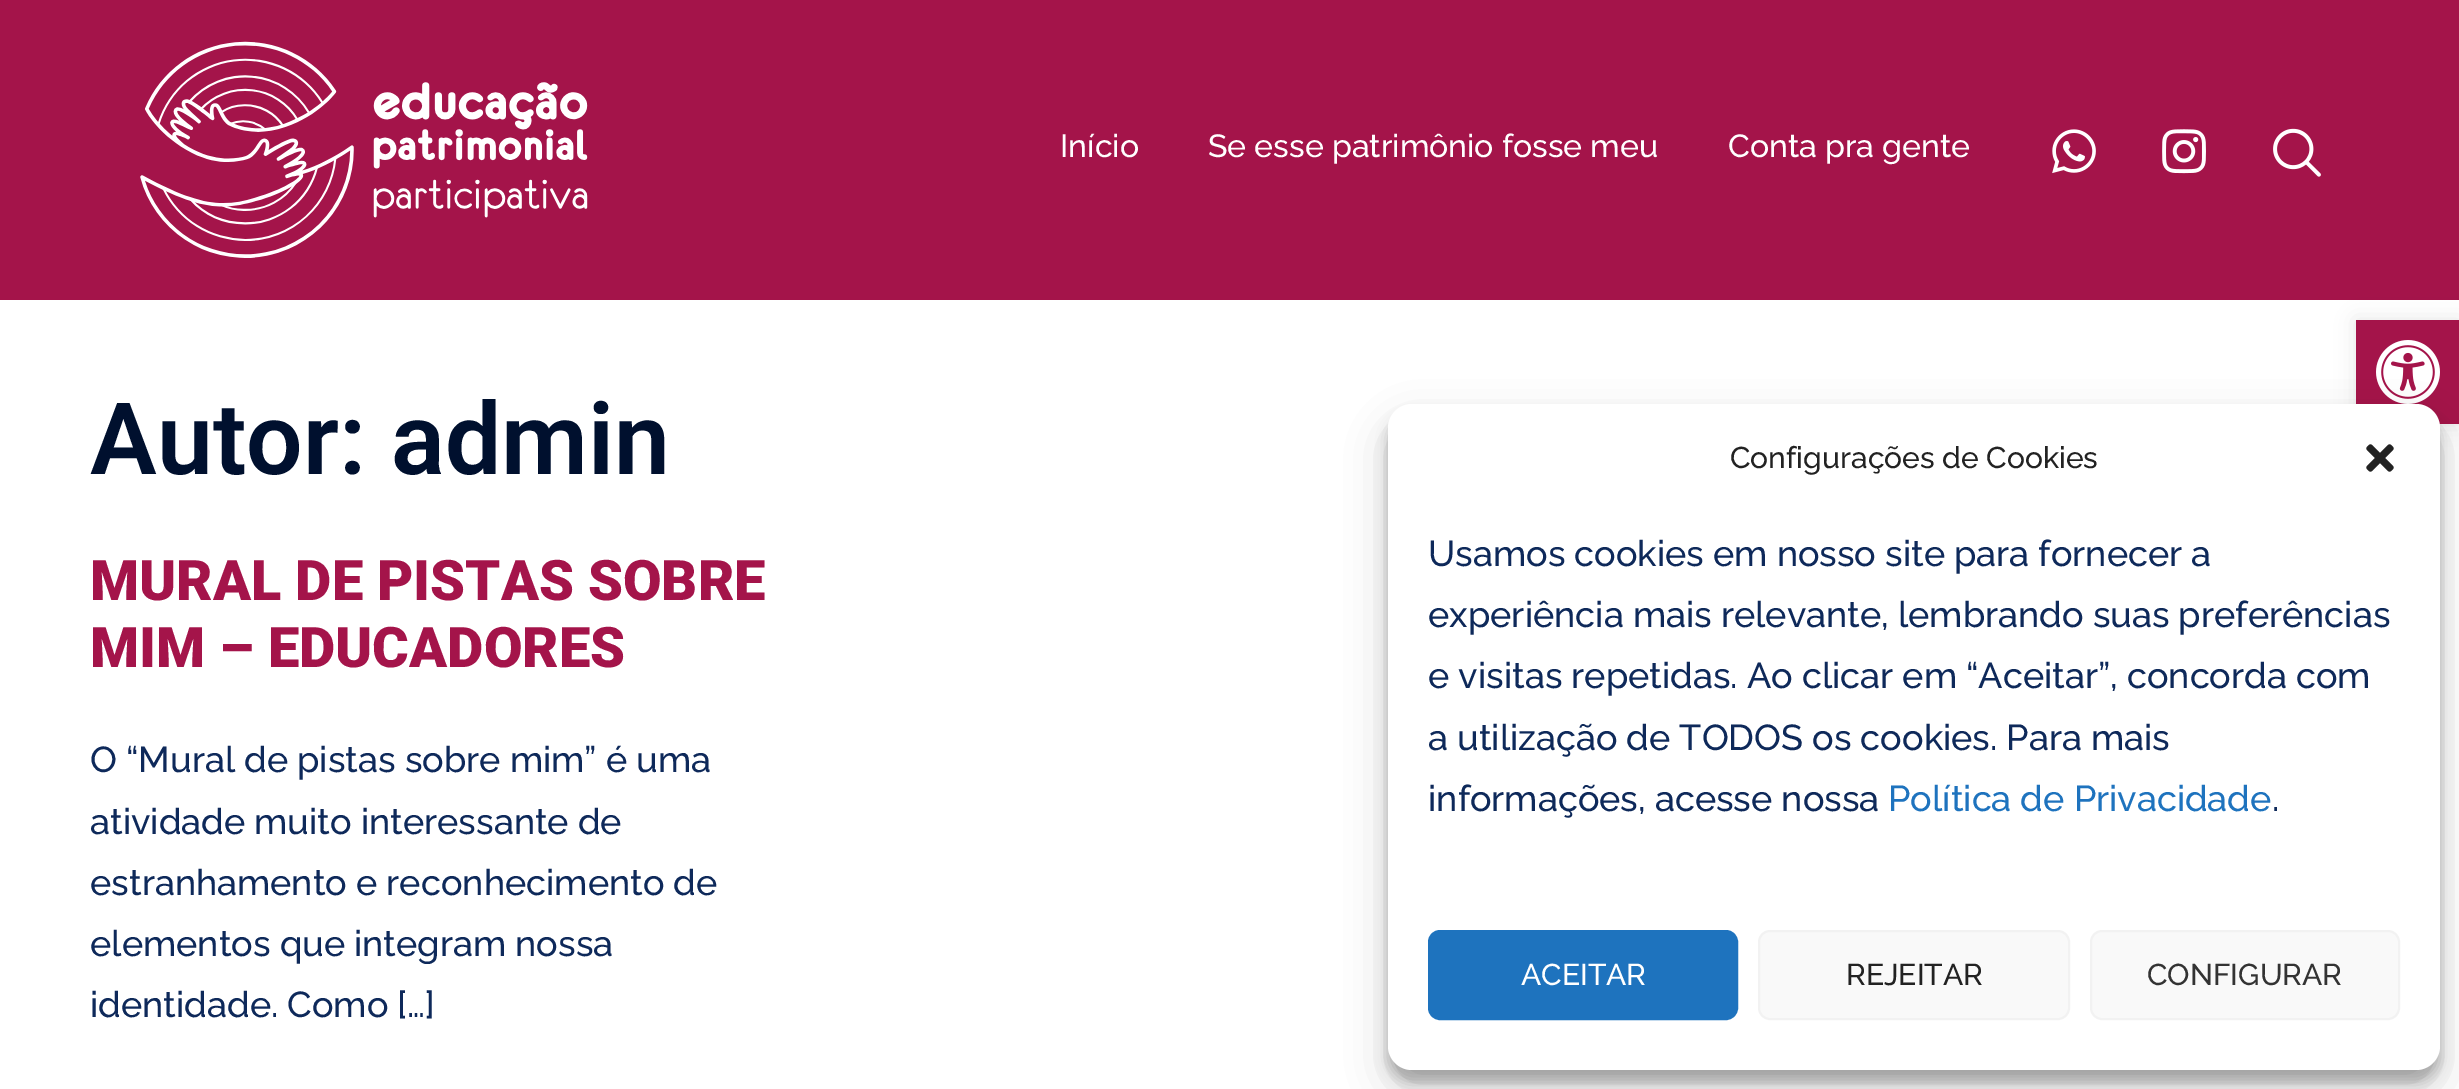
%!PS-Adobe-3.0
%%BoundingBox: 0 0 2459 1089
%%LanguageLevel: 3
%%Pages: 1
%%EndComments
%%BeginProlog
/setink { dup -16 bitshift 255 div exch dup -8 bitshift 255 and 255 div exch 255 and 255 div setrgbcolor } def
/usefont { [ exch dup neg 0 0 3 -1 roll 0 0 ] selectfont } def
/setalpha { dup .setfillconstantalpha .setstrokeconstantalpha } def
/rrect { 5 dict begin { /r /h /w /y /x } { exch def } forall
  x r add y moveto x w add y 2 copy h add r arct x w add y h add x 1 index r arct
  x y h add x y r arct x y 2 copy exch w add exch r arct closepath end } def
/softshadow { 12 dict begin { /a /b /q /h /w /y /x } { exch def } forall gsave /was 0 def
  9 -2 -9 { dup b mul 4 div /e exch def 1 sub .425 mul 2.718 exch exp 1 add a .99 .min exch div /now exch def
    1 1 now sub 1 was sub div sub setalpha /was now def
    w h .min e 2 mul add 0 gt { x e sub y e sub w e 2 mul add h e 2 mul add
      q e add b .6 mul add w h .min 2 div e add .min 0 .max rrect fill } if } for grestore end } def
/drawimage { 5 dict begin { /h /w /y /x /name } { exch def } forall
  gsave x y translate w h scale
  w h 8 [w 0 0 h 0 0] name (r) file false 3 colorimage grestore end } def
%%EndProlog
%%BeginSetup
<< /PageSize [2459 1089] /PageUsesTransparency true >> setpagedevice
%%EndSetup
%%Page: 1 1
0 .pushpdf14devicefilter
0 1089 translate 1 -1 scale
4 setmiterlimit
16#FFFFFF setink
0 0 2459 1089 rectfill
16#A4144A setink
0 0 2459 300 rectfill
(img1.raw) 140 41 448 217 drawimage
/Raleway-Medium 32 usefont
16#FFFFFF setink
[
    [(Início) 1060 157]
    [(Se esse patrimônio fosse meu) 1208 157]
    [(Conta pra gente) 1728 157]
] { aload pop moveto show } forall
(img2.raw) 2052 129 44 45 drawimage
(img3.raw) 2162 129 44 45 drawimage
(img4.raw) 2273 128 48 49 drawimage
/Roboto-SemiBold 100 usefont
16#00102E setink
90 474 moveto (Autor: admin) show
/Roboto-Black 56 usefont
16#A4144A setink
90 600 moveto (MURAL DE PISTAS SOBRE) show
90 667 moveto (MIM – EDUCADORES) show
/Raleway-Medium 36 usefont
16#0E295A setink
[
    [(O “Mural de pistas sobre mim” é uma) 90 772]
    [(atividade muito interessante de) 90 834]
    [(estranhamento e reconhecimento de) 90 895]
    [(elementos que integram nossa) 90 956]
    [(identidade. Como […]) 90 1017]
] { aload pop moveto show } forall
16#000000 setink
2356 320 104 104 0 10 0.1 softshadow
16#A4144A setink
2356 320 103 104 rectfill
(img5.raw) 2376 340 64 64 drawimage
16#000000 setink
1388 416 1052 666 24 6 0.23 softshadow
1388 424 1052 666 24 20 0.19 softshadow
16#FFFFFF setink
1388 404 1052 666 24 rrect fill
/Raleway-Medium 30 usefont
16#222222 setink
1730 468 moveto (Configurações de Cookies) show
(img6.raw) 2366 444 28 28 drawimage
/Raleway-Medium 36 usefont
16#0E295A setink
[
    [(Usamos cookies em nosso site para fornecer a) 1428 566]
    [(experiência mais relevante, lembrando suas preferências) 1428 627]
    [(e visitas repetidas. Ao clicar em “Aceitar”, concorda com) 1428 688]
    [(a utilização de TODOS os cookies. Para mais) 1428 750]
    [(informações, acesse nossa) 1428 811]
] { aload pop moveto show } forall
16#1E73BE setink
1888 811 moveto (Política de Privacidade) show
16#0E295A setink
2272 811 moveto (.) show
16#1E73BE setink
1429 931 308 88 11 rrect gsave fill grestore
2 setlinewidth
stroke
/Raleway-Medium 30 usefont
16#FFFFFF setink
1521 985 moveto (ACEITAR) show
16#F9F9F9 setink
1759 931 310 88 11 rrect gsave fill grestore
16#F2F2F2 setink
stroke
16#222222 setink
1846 985 moveto (REJEITAR) show
16#F9F9F9 setink
2091 931 308 88 11 rrect gsave fill grestore
16#F2F2F2 setink
stroke
16#333333 setink
2147 985 moveto (CONFIGURAR) show
.poppdf14devicefilter showpage
%%EOF
